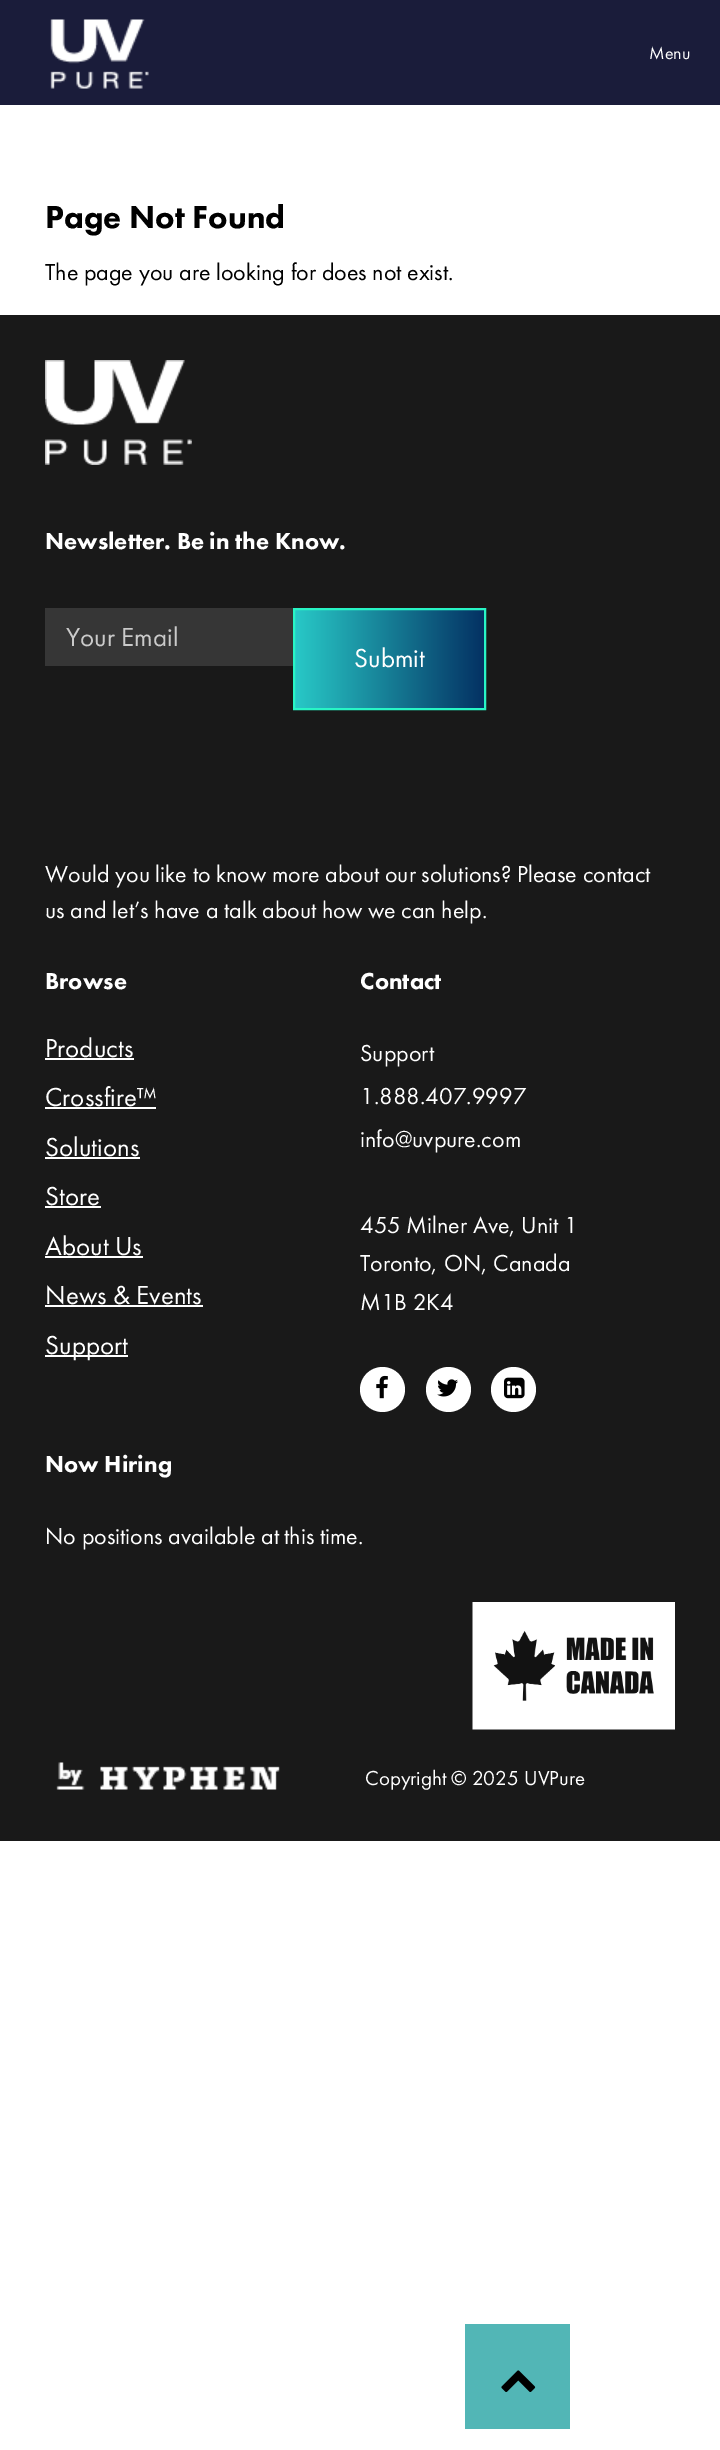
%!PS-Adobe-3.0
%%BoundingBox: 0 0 720 2450
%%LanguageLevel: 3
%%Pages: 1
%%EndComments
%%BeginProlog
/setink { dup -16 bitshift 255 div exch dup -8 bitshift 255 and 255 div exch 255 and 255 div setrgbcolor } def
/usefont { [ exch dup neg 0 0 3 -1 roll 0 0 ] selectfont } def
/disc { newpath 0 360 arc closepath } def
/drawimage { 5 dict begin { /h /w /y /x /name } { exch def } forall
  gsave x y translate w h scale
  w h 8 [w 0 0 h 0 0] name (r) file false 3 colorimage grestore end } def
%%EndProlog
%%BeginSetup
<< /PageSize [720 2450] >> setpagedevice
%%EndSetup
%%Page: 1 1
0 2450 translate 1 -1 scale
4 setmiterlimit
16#FFFFFF setink
0 0 720 2450 rectfill
16#1A1C3A setink
0 0 720 105 rectfill
(img1.raw) 50 19 99 70 drawimage
/FuturaPT-Regular 18 usefont
16#FFFFFF setink
649 59 moveto (Menu) show
/FuturaPT-Black 33 usefont
16#000000 setink
45 228 moveto (Page Not Found) show
/FuturaPT-Regular 24 usefont
45 280 moveto (The page you are looking for does not exist.) show
16#191919 setink
0 315 720 1526 rectfill
(img2.raw) 45 360 147 105 drawimage
/FuturaPT-Black 24 usefont
16#FFFFFF setink
45 549 moveto (Newsletter. Be in the Know.) show
16#363636 setink
45 608 248 58 rectfill
/FuturaPT-Regular 27 usefont
16#CACACA setink
66 646 moveto (Your Email) show
gsave 295 610 moveto 484 610 lineto 484 708 lineto 295 708 lineto closepath clip newpath
<< /ShadingType 2 /ColorSpace /DeviceRGB /Coords [294 659 485 659] /Extend [true true] /Function << /FunctionType 2 /Domain [0 1] /C0 [0.157 0.792 0.784] /C1 [0.016 0.188 0.388] /N 1 >> >> shfill grestore
16#28F5C5 setink
2 setlinewidth
294 609 191 100 rectstroke
16#FFFFFF setink
354 667 moveto (Submit) show
/FuturaPT-Regular 24 usefont
45 882 moveto (Would you like to know more about our solutions? Please contact) show
45 918 moveto (us and let’s have a talk about how we can help.) show
/FuturaPT-Black 24 usefont
45 989 moveto (Browse) show
/FuturaPT-Regular 27 usefont
45 1057 moveto (Products) show
45 1058 89 2 rectfill
45 1106 moveto (Crossfire™) show
45 1107 111 2 rectfill
45 1156 moveto (Solutions) show
45 1157 95 2 rectfill
45 1205 moveto (Store) show
45 1206 56 2 rectfill
45 1255 moveto (About Us) show
45 1256 98 2 rectfill
45 1304 moveto (News & Events) show
45 1305 158 2 rectfill
45 1355 83 2 rectfill
45 1354 moveto (Support) show
/FuturaPT-Black 24 usefont
360 989 moveto (Contact) show
/FuturaPT-Regular 24 usefont
[
    [(Support) 360 1061]
    [(1.888.407.9997) 360 1104]
    [(info@uvpure.com) 360 1147]
    [(455 Milner Ave, Unit 1) 360 1233]
    [(Toronto, ON, Canada) 360 1271]
    [(M1B 2K4) 360 1310]
] { aload pop moveto show } forall
382.5 1389.5 22.5 disc fill
(img3.raw) 376 1375 12 24 drawimage
448.5 1389.5 22.5 disc fill
(img4.raw) 437 1379 21 18 drawimage
513.5 1389.5 22.5 disc fill
(img5.raw) 504 1377 21 22 drawimage
/FuturaPT-Black 24 usefont
45 1472 moveto (Now Hiring) show
/FuturaPT-Regular 24 usefont
45 1544 moveto (No positions available at this time.) show
(img6.raw) 472 1602 203 128 drawimage
(img7.raw) 56 1762 224 28 drawimage
/FuturaPT-Regular 21 usefont
365 1785 moveto (Copyright © 2025 UVPure) show
16#52B6B6 setink
465 2324 105 105 rectfill
(img8.raw) 501 2370 35 22 drawimage
showpage
%%EOF
